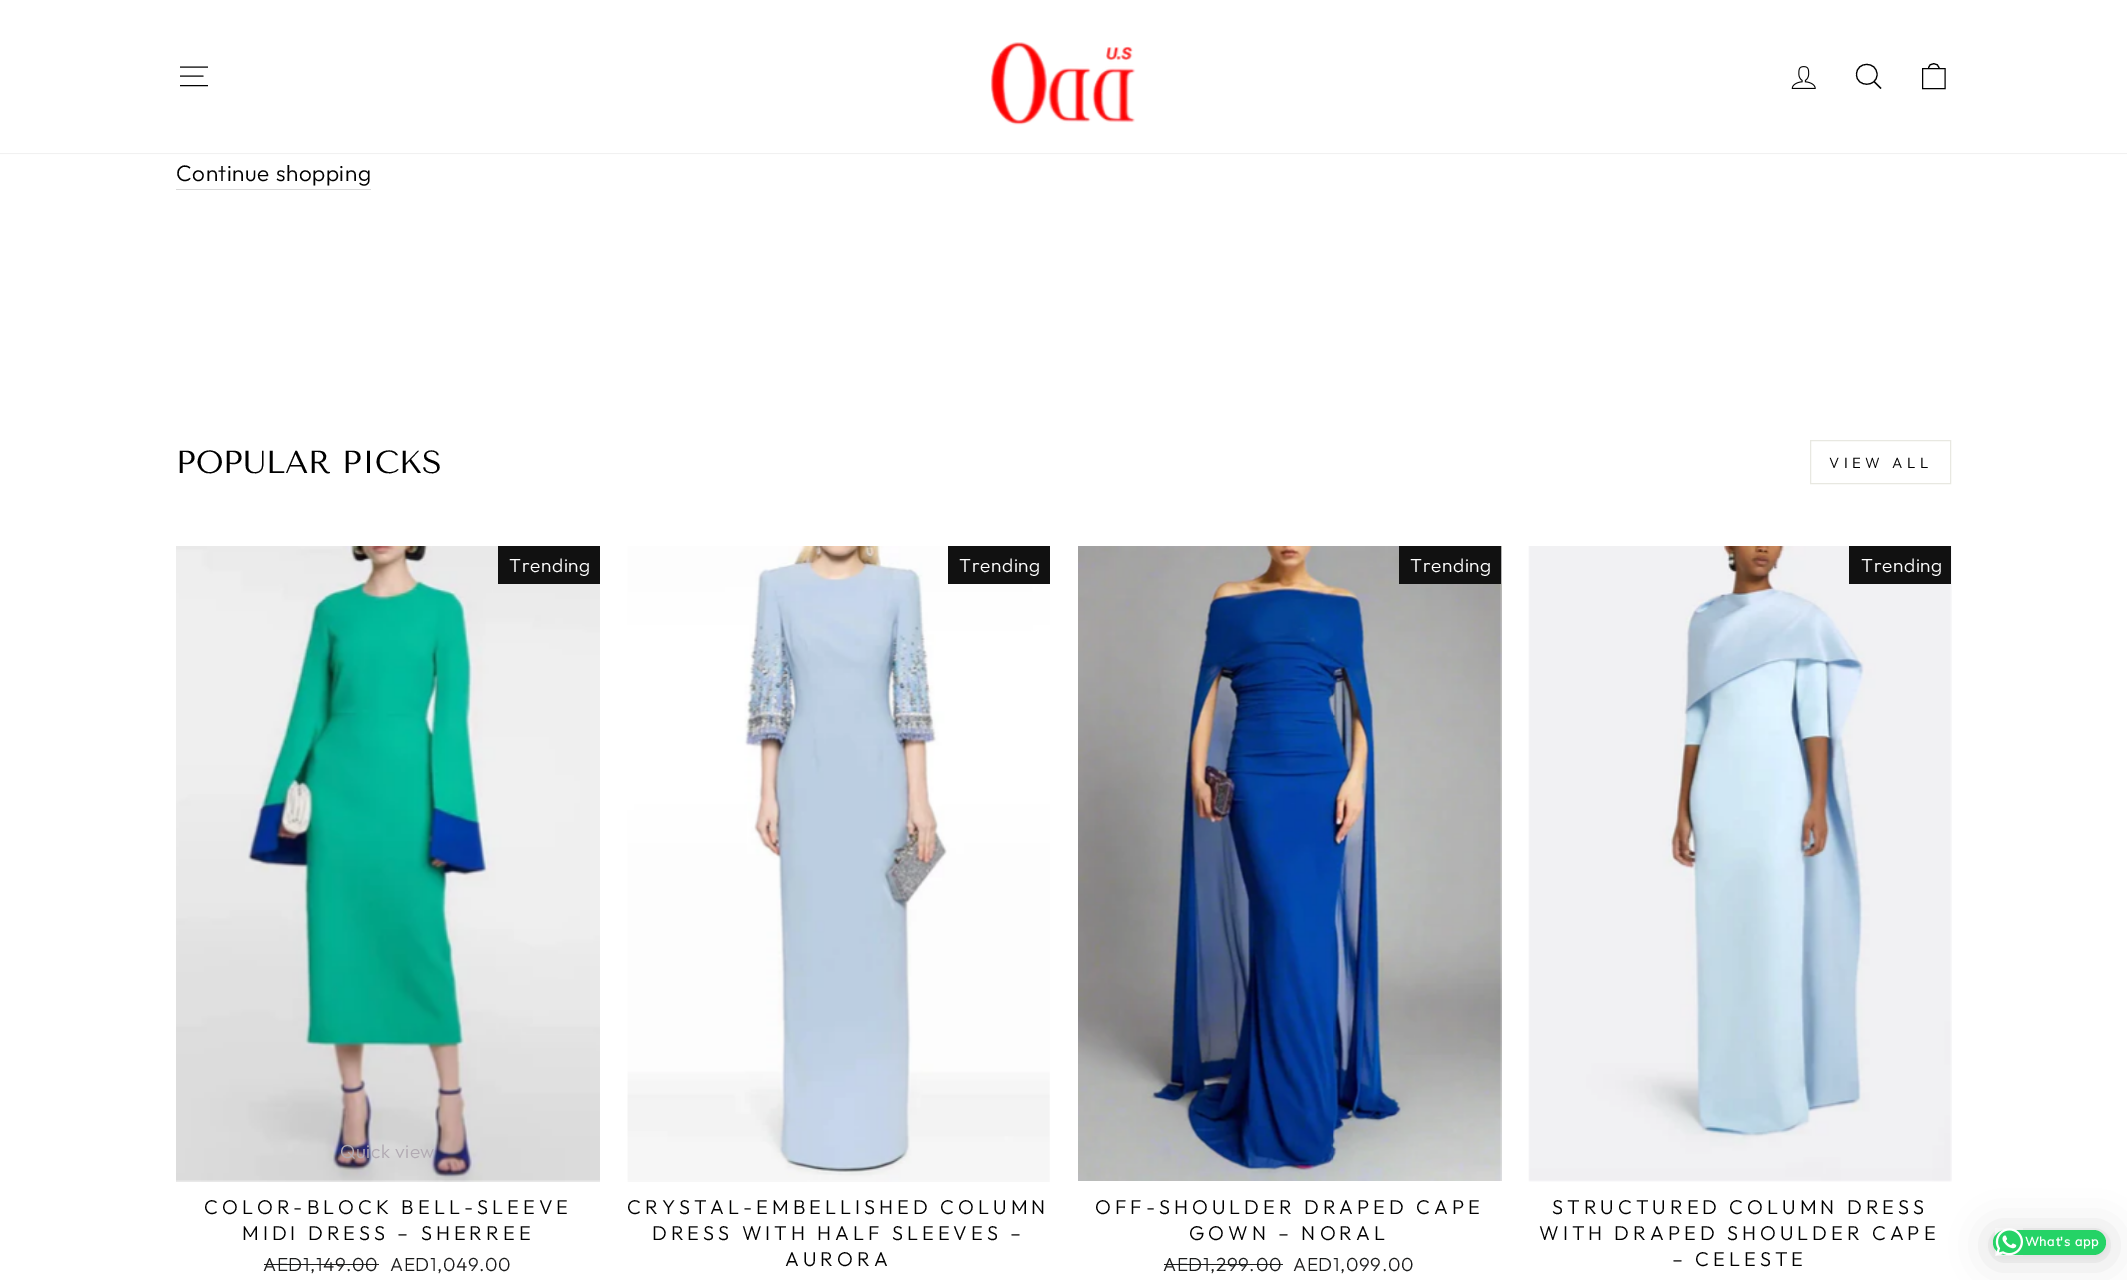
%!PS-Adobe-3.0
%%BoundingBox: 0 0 2127 1280
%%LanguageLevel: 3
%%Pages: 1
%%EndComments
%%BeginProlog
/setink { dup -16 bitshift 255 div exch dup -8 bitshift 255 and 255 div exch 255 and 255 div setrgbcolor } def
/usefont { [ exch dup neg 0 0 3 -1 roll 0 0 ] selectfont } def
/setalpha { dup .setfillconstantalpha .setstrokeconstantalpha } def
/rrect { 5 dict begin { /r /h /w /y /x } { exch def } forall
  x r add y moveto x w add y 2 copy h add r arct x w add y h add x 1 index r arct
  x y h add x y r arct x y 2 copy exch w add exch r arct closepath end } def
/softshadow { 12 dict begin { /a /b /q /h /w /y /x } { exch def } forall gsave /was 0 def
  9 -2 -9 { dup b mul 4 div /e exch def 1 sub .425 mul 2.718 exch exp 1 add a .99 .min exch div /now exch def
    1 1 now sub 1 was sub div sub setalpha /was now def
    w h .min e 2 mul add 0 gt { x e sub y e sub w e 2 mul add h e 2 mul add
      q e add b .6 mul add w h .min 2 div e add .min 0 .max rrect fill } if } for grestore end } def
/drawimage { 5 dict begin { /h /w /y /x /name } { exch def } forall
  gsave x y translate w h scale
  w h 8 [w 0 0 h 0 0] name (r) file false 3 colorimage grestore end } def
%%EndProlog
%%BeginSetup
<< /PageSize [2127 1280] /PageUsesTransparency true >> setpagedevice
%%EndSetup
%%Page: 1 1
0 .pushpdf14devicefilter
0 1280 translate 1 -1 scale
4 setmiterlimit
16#FFFFFF setink
0 0 2127 1280 rectfill
16#000000 setink
0 0 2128 153 0 0.5 0.2 softshadow
16#FFFFFF setink
0 0 2127 153 rectfill
16#000000 setink
1.1 setlinewidth
180 67 moveto 208 67 lineto 180 76 moveto 203.5 76 lineto 180 85.5 moveto 208 85.5 lineto stroke
(img1.raw) 990 42 146 83 drawimage
(img2.raw) 1791 66 25 23 drawimage
1877 74.5 moveto 1877 87.5 1856.5 87.5 1856.5 74.5 curveto 1856.5 61 1877 61 1877 74.5 curveto closepath 1881 88.5 moveto 1874 81.5 lineto stroke
1922.5 68.5 moveto 1945 68.5 lineto 1945 88.5 lineto 1922.5 88.5 lineto closepath 1928.5 68.5 moveto 1928.5 62 1939 62 1939 68.5 curveto stroke
16#D9D9D9 setink
176 189 195 1 rectfill
/Outfit-Light 22.5 usefont
16#000000 setink
176 181 moveto 0.6 0 (Continue shopping) ashow
/TenorSans-Regular 31.9 usefont
176 473 moveto (POPULAR PICKS) show
16#E8E8E1 setink
1 setlinewidth
1810.5 440.5 140 43 rectstroke
/Outfit-Light 15 usefont
16#000000 setink
1829 468 moveto 4.5 0 (VIEW ALL) ashow
(img3.raw) 176 546 424 636 drawimage
16#111111 setink
498 546 102 38 rectfill
/Outfit-Light 19 usefont
16#FFFFFF setink
509 572 moveto 0.6 0 (Trending) ashow
16#B1AAB2 setink
340 1158 moveto 0.5 0 (Quick view) ashow
/Outfit-Light 20 usefont
16#000000 setink
204 1214 moveto 4 0 (COLOR-BLOCK BELL-SLEEVE) ashow
242 1240 moveto 4 0 (MIDI DRESS – SHERREE) ashow
/Outfit-Light 19 usefont
16#1C1D1D setink
263 1271 moveto 0.6 0 (AED1,149.00) ashow
264 1264 115 1 rectfill
390 1271 moveto 0.6 0 (AED1,049.00) ashow
(img4.raw) 627 546 423 636 drawimage
16#111111 setink
948 546 102 38 rectfill
16#FFFFFF setink
959 572 moveto 0.6 0 (Trending) ashow
/Outfit-Light 20 usefont
16#000000 setink
627 1214 moveto 4 0 (CRYSTAL-EMBELLISHED COLUMN) ashow
652 1240 moveto 4 0 (DRESS WITH HALF SLEEVES –) ashow
785 1266 moveto 4 0 (AURORA) ashow
(img5.raw) 1078 546 424 635 drawimage
16#111111 setink
1399 546 102 38 rectfill
/Outfit-Light 19 usefont
16#FFFFFF setink
1410 572 moveto 0.6 0 (Trending) ashow
/Outfit-Light 20 usefont
16#000000 setink
1095 1214 moveto 4 0 (OFF-SHOULDER DRAPED CAPE) ashow
1189 1240 moveto 4 0 (GOWN – NORAL) ashow
/Outfit-Light 19 usefont
16#1C1D1D setink
1163 1271 moveto 0.6 0 (AED1,299.00) ashow
1164 1264 119 1 rectfill
1293 1271 moveto 0.6 0 (AED1,099.00) ashow
(img6.raw) 1528 546 424 636 drawimage
16#111111 setink
1849 546 102 38 rectfill
16#FFFFFF setink
1861 572 moveto 0.6 0 (Trending) ashow
/Outfit-Light 20 usefont
16#000000 setink
1552 1214 moveto 4 0 (STRUCTURED COLUMN DRESS) ashow
1539 1240 moveto 4 0 (WITH DRAPED SHOULDER CAPE) ashow
1672 1266 moveto 4 0 (– CELESTE) ashow
1993 1233 113 25 12.5 20 0.16 softshadow
1993 1231 113 25 12.5 4 0.06 softshadow
16#25D366 setink
1993 1230 113 25 12.5 rrect fill
(img7.raw) 1995 1228 28 28 drawimage
/Muli-Bold 12.5 usefont
16#FFFFFF setink
2025 1246 moveto 0.6 0 (What's app) ashow
.poppdf14devicefilter showpage
%%EOF
